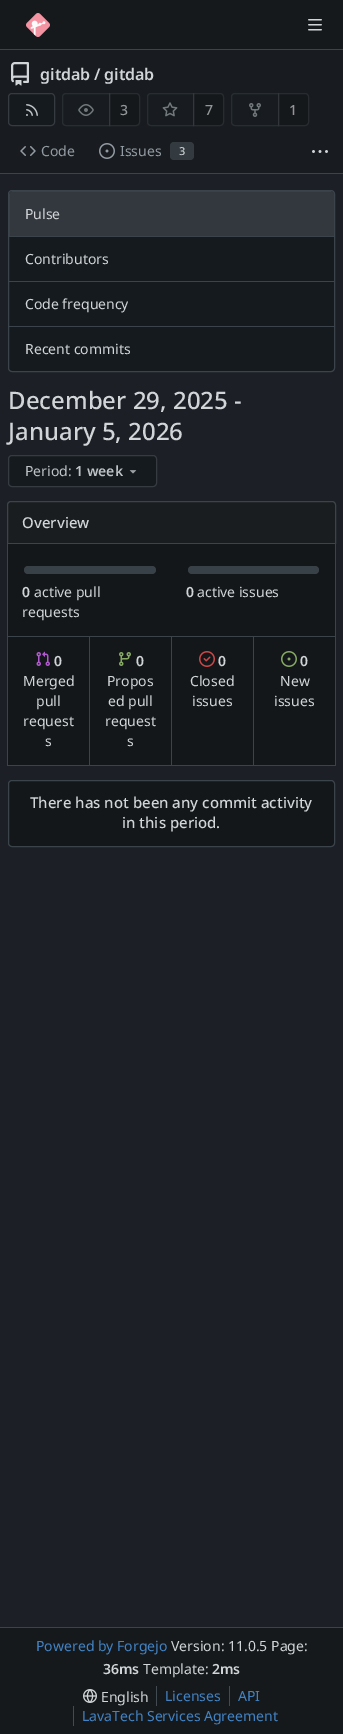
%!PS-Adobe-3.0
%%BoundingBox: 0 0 343 1734
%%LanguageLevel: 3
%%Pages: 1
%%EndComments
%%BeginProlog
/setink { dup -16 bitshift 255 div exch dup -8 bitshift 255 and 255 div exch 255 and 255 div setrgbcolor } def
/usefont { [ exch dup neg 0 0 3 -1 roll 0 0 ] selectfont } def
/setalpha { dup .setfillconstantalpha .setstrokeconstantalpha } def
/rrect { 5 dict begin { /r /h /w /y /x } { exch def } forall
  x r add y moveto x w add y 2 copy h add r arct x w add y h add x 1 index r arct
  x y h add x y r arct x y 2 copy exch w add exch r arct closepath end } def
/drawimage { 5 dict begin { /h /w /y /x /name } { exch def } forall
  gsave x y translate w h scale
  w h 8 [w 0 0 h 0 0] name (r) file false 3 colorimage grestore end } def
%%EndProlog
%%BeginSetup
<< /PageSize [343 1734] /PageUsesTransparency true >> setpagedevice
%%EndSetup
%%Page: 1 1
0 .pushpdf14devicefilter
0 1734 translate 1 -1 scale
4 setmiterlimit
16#1C1F25 setink
0 0 343 1734 rectfill
16#16191C setink
0 0 343 49 rectfill
16#3B444A setink
0 49 343 1 rectfill
(img1.raw) 26 13 24 24 drawimage
(img2.raw) 308 19 14 12 drawimage
16#181C20 setink
0 50 343 123 rectfill
(img3.raw) 11 62 18 24 drawimage
/NotoSans-SemiBold 16 usefont
16#D1D5D8 setink
[
    [(gitdab) 40 80]
    [(/) 94 80]
    [(gitdab) 104 80]
] { aload pop moveto show } forall
16#151A1E setink
8.5 93.5 46 32 3.5 rrect gsave fill grestore
16#363A41 setink
stroke
(img4.raw) 26 104 12 12 drawimage
16#282D32 setink
66 93.5 moveto 109.5 93.5 lineto 109.5 125.5 lineto 66 125.5 lineto 64 125.5 62.5 124 62.5 122 curveto 62.5 97 lineto 62.5 95 64 93.5 66 93.5 curveto closepath stroke
(img5.raw) 78 104 16 12 drawimage
0.14 setalpha
16#000000 setink
109 93 moveto 136 93 lineto 138 93 140 95 140 97 curveto 140 122 lineto 140 124 138 126 136 126 curveto 109 126 lineto closepath fill
0.09 setalpha
16#E8E8FF setink
109.5 93.5 moveto 136 93.5 lineto 138 93.5 139.5 95 139.5 97 curveto 139.5 122 lineto 139.5 124 138 125.5 136 125.5 curveto 109.5 125.5 lineto closepath stroke
/NotoSans-Medium 14 usefont
1 setalpha
16#939597 setink
120 115 moveto (3) show
16#282D32 setink
151 93.5 moveto 193.5 93.5 lineto 193.5 125.5 lineto 151 125.5 lineto 149 125.5 147.5 124 147.5 122 curveto 147.5 97 lineto 147.5 95 149 93.5 151 93.5 curveto closepath stroke
(img6.raw) 162 102 16 15 drawimage
0.14 setalpha
16#000000 setink
193 93 moveto 220 93 lineto 222 93 224 95 224 97 curveto 224 122 lineto 224 124 222 126 220 126 curveto 193 126 lineto closepath fill
0.09 setalpha
16#E8E8FF setink
193.5 93.5 moveto 220 93.5 lineto 222 93.5 223.5 95 223.5 97 curveto 223.5 122 lineto 223.5 124 222 125.5 220 125.5 curveto 193.5 125.5 lineto closepath stroke
1 setalpha
16#939597 setink
205 115 moveto (7) show
16#282D32 setink
235 93.5 moveto 278.5 93.5 lineto 278.5 125.5 lineto 235 125.5 lineto 233 125.5 231.5 124 231.5 122 curveto 231.5 97 lineto 231.5 95 233 93.5 235 93.5 curveto closepath stroke
(img7.raw) 249 103 12 14 drawimage
0.25 setalpha
16#0B0D0E setink
278 93 moveto 305 93 lineto 307 93 309 95 309 97 curveto 309 122 lineto 309 124 307 126 305 126 curveto 278 126 lineto closepath fill
0.16 setalpha
16#8A8C9B setink
278.5 93.5 moveto 305 93.5 lineto 307 93.5 308.5 95 308.5 97 curveto 308.5 122 lineto 308.5 124 307 125.5 305 125.5 curveto 278.5 125.5 lineto closepath stroke
1 setalpha
16#939597 setink
289 115 moveto (1) show
(img8.raw) 20 146 16 10 drawimage
/NotoSans-Regular 14 usefont
16#929BA2 setink
41 156 moveto (Code) show
(img9.raw) 99 143 16 16 drawimage
120 156 moveto (Issues) show
16#333A40 setink
170 142 24 18 4 rrect fill
/NotoSans-Medium 11 usefont
16#D1D5D8 setink
179 155 moveto (3) show
(img10.raw) 312 150 16 3 drawimage
16#3B444A setink
0 173 343 1 rectfill
16#151A1E setink
8.5 190.5 326 181 3.5 rrect gsave fill grestore
16#3B444A setink
stroke
0.14 setalpha
16#E8E8FF setink
13 191 moveto 330 191 lineto 332 191 334 193 334 195 curveto 334 236 lineto 9 236 lineto 9 195 lineto 9 193 11 191 13 191 curveto closepath fill
/NotoSans-Regular 14 usefont
1 setalpha
16#D1D5D8 setink
25 219 moveto (Pulse) show
16#3B444A setink
9 236 325 1 rectfill
16#D1D5D8 setink
25 264 moveto (Contributors) show
16#3B444A setink
9 281 325 1 rectfill
16#D1D5D8 setink
25 309 moveto (Code frequency) show
16#3B444A setink
9 326 325 1 rectfill
16#D1D5D8 setink
25 354 moveto (Recent commits) show
/NotoSans-Medium 24 usefont
8 409 moveto (December 29, 2025 -) show
8 440 moveto (January 5, 2026) show
16#151A1E setink
8.5 455.5 148 31 3.5 rrect gsave fill grestore
16#363A41 setink
stroke
/NotoSans-Regular 14 usefont
16#BDC3C7 setink
25 476 moveto (Period:) show
/NotoSans-SemiBold 14 usefont
75 476 moveto (1 week) show
(img11.raw) 129 470 8 4 drawimage
16#1A1D1F setink
11 501.5 moveto 332 501.5 lineto 334 501.5 335.5 503 335.5 505 curveto 335.5 543.5 lineto 7.5 543.5 lineto 7.5 505 lineto 7.5 503 9 501.5 11 501.5 curveto closepath gsave fill grestore
16#3B444A setink
stroke
/NotoSans-Medium 15 usefont
16#D1D5D8 setink
22 528 moveto (Overview) show
[
    [8 544 327 92 16#14171A]
    [335 544 1 222 16#3B444A]
    [7 636 329 1 16#3B444A]
    [7 544 1 93 16#3B444A]
] { aload pop setink rectfill } forall
16#384147 setink
24 566 132 8 4 rrect fill
/NotoSans-SemiBold 14 usefont
16#D1D5D8 setink
22 597 moveto (0) show
/NotoSans-Regular 14 usefont
34 597 moveto (active pull) show
22 617 moveto (requests) show
16#384147 setink
188 566 131 8 4 rrect fill
/NotoSans-SemiBold 14 usefont
16#D1D5D8 setink
186 597 moveto (0) show
/NotoSans-Regular 14 usefont
197 597 moveto (active issues) show
[
    [8 637 327 128 16#14171A]
    [7 765 329 1 16#3B444A]
    [7 637 1 129 16#3B444A]
] { aload pop setink rectfill } forall
(img12.raw) 36 651 14 15 drawimage
/NotoSans-SemiBold 14 usefont
16#D1D5D8 setink
54 666 moveto (0) show
/NotoSans-Regular 14 usefont
[
    [(Merged) 23 686]
    [(pull) 36 706]
    [(request) 23 726]
    [(s) 45 746]
] { aload pop moveto show } forall
16#3B444A setink
89 637 1 128 rectfill
(img13.raw) 119 652 12 14 drawimage
/NotoSans-SemiBold 14 usefont
16#D1D5D8 setink
136 666 moveto (0) show
/NotoSans-Regular 14 usefont
[
    [(Propos) 107 686]
    [(ed pull) 108 706]
    [(request) 105 726]
    [(s) 127 746]
] { aload pop moveto show } forall
16#3B444A setink
171 637 1 128 rectfill
(img14.raw) 199 651 16 16 drawimage
/NotoSans-SemiBold 14 usefont
16#D1D5D8 setink
218 666 moveto (0) show
/NotoSans-Regular 14 usefont
190 686 moveto (Closed) show
192 706 moveto (issues) show
16#3B444A setink
253 637 1 128 rectfill
(img15.raw) 281 651 16 16 drawimage
/NotoSans-SemiBold 14 usefont
16#D1D5D8 setink
300 666 moveto (0) show
/NotoSans-Regular 14 usefont
280 686 moveto (New) show
274 706 moveto (issues) show
16#14171A setink
8.5 780.5 326 66 3.5 rrect gsave fill grestore
16#3B444A setink
stroke
/NotoSans-Medium 15 usefont
16#D1D5D8 setink
30 808 moveto (There has not been any commit activity) show
122 828 moveto (in this period.) show
16#16191C setink
0 1628 343 106 rectfill
16#3B444A setink
0 1627 343 1 rectfill
/NotoSans-Regular 14 usefont
16#4183C4 setink
36 1651 moveto (Powered by Forgejo) show
16#D1D5D8 setink
171 1651 moveto (Version: 11.0.5 Page:) show
/NotoSans-SemiBold 14 usefont
103 1674 moveto (36ms) show
/NotoSans-Regular 14 usefont
143 1674 moveto (Template:) show
/NotoSans-SemiBold 14 usefont
212 1674 moveto (2ms) show
(img16.raw) 83 1689 14 14 drawimage
/NotoSans-Regular 14 usefont
101 1702 moveto (English) show
16#424B51 setink
156 1686 1 20 rectfill
16#4183C4 setink
165 1701 moveto (Licenses) show
16#424B51 setink
229 1686 1 20 rectfill
16#4183C4 setink
238 1701 moveto (API) show
16#424B51 setink
73 1706 1 20 rectfill
16#4183C4 setink
82 1721 moveto (LavaTech Services Agreement) show
.poppdf14devicefilter showpage
%%EOF
